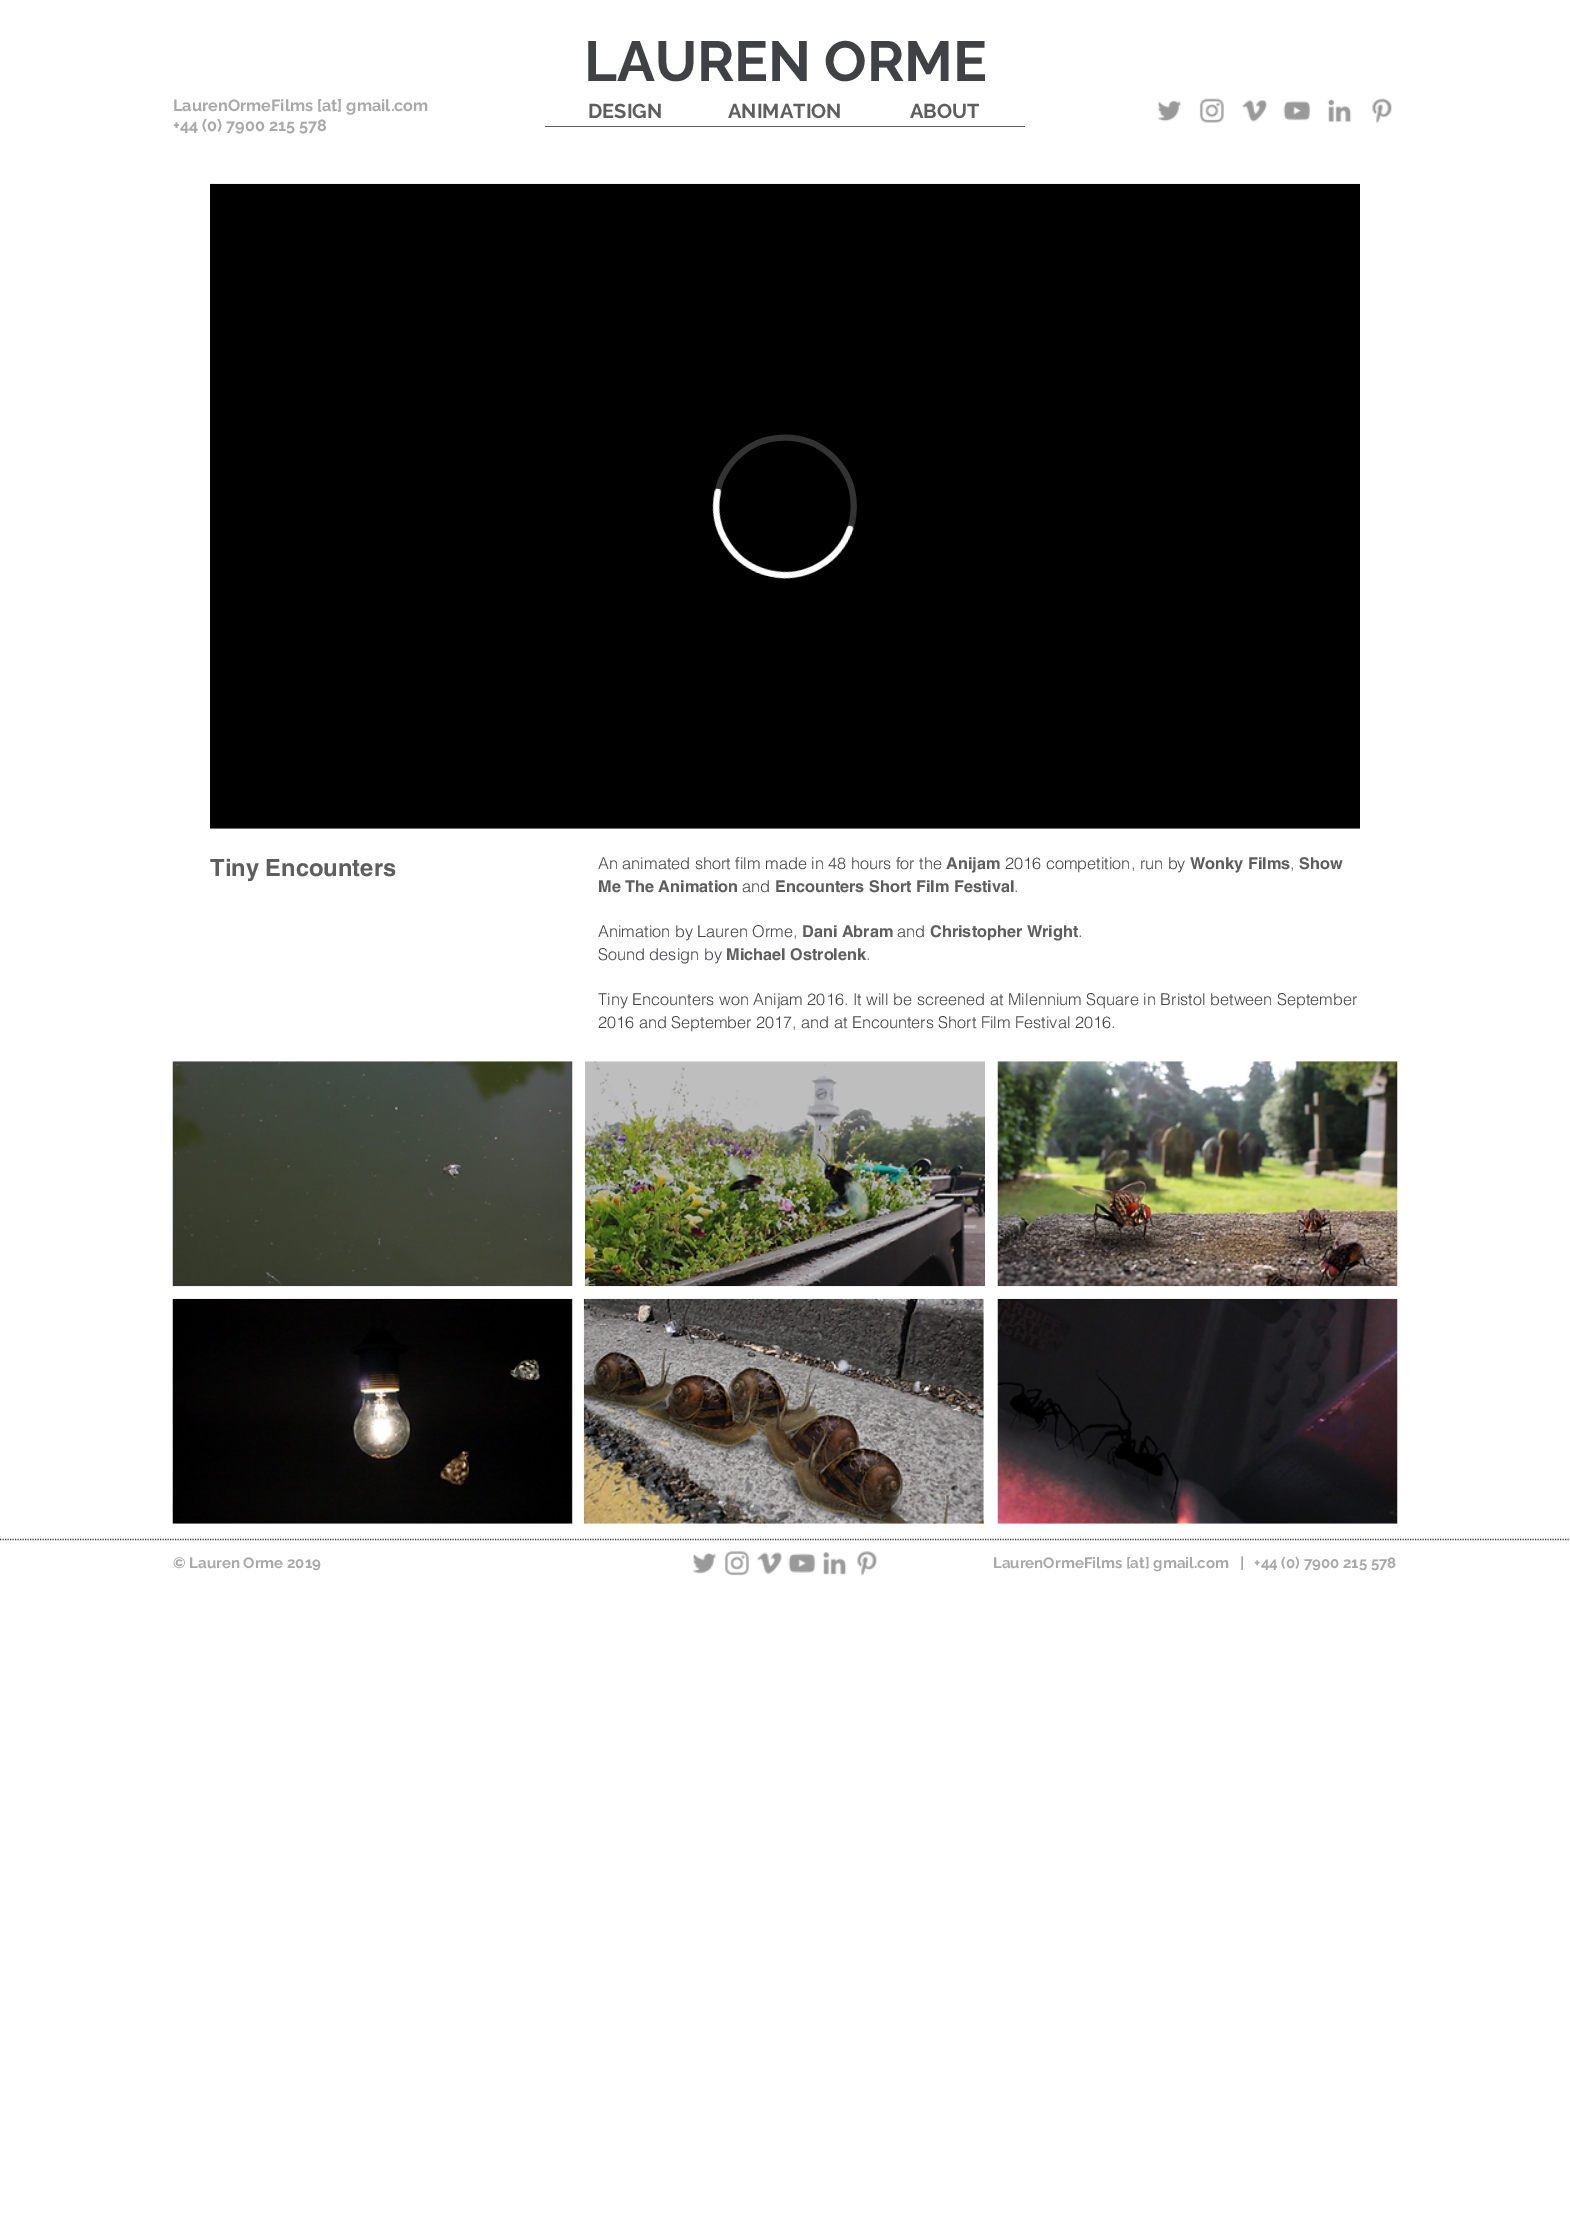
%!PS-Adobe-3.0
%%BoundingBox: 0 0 1570 2234
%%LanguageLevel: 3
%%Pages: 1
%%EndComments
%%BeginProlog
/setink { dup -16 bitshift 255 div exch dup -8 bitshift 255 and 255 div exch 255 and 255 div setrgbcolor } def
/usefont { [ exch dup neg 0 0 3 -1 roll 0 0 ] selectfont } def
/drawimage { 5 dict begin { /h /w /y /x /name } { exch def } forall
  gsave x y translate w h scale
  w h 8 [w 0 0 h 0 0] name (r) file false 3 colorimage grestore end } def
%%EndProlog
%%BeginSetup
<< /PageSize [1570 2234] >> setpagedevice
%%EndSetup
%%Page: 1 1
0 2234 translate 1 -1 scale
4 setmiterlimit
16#FFFFFF setink
0 0 1570 2234 rectfill
/Raleway-Bold 56.25 usefont
16#404144 setink
584 81 moveto (LAUREN ORME) show
/Raleway-Bold 16.25 usefont
16#A9A9A9 setink
173 111 moveto (LaurenOrmeFilms [at] gmail.com) show
173 131 moveto (+44 \(0\) 7900 215 578) show
/Raleway-Bold 20 usefont
16#5E5E5E setink
[
    [(DESIGN) 588 118]
    [(ANIMATION) 728 118]
    [(ABOUT) 910 118]
] { aload pop moveto show } forall
545 126 480 1 rectfill
(img1.raw) 1157 100 25 22 drawimage
(img2.raw) 1199 98 25 25 drawimage
(img3.raw) 1242 100 25 22 drawimage
(img4.raw) 1283 101 28 20 drawimage
(img5.raw) 1327 99 25 24 drawimage
(img6.raw) 1372 98 20 25 drawimage
(img7.raw) 210 183 1150 646 drawimage
/helvetica-Bold 23.75 usefont
210 876 moveto (Tiny Encounters) show
/helvetica-Light 16.25 usefont
16#404144 setink
598 869 moveto (An animated short film made in 48 hours for the) show
/helvetica-Bold 16.25 usefont
16#5E5E5E setink
946 869 moveto (Anijam) show
/helvetica-Light 16.25 usefont
16#404144 setink
1005 869 moveto (2016 competition, run by) show
/helvetica-Bold 16.25 usefont
16#5E5E5E setink
1190 869 moveto (Wonky Films) show
/helvetica-Light 16.25 usefont
16#404144 setink
1290 869 moveto (,) show
/helvetica-Bold 16.25 usefont
16#5E5E5E setink
1299 869 moveto (Show) show
598 892 moveto (Me The Animation) show
/helvetica-Light 16.25 usefont
16#404144 setink
742 892 moveto (and) show
/helvetica-Bold 16.25 usefont
16#5E5E5E setink
775 892 moveto (Encounters Short Film Festival) show
/helvetica-Light 16.25 usefont
16#404144 setink
1014 892 moveto (.) show
598 937 moveto (Animation by Lauren Orme,) show
/helvetica-Bold 16.25 usefont
16#5E5E5E setink
802 937 moveto (Dani Abram) show
/helvetica-Light 16.25 usefont
16#404144 setink
897 937 moveto (and) show
/helvetica-Bold 16.25 usefont
16#5E5E5E setink
930 937 moveto (Christopher Wright) show
/helvetica-Light 16.25 usefont
16#404144 setink
1078 937 moveto (.) show
598 960 moveto (Sound design by) show
/helvetica-Bold 16.25 usefont
16#5E5E5E setink
726 960 moveto (Michael Ostrolenk) show
/helvetica-Light 16.25 usefont
16#404144 setink
[
    [(.) 866 960]
    [(Tiny Encounters won Anijam 2016. It will be screened at Milennium Square in Bristol between September) 598 1005]
    [(2016 and September 2017, and at Encounters Short Film Festival 2016.) 598 1028]
] { aload pop moveto show } forall
(img8.raw) 172 1061 401 226 drawimage
(img9.raw) 585 1061 400 226 drawimage
(img10.raw) 997 1061 401 226 drawimage
(img11.raw) 172 1298 401 226 drawimage
(img12.raw) 583 1298 401 226 drawimage
(img13.raw) 997 1298 401 226 drawimage
1.2 setlinewidth
[1.25 1.25] 0 setdash
0 1539.5 moveto 1570 1539.5 lineto stroke
/Raleway-Bold 15 usefont
16#A9A9A9 setink
173 1568 moveto (© Lauren Orme 2019) show
(img14.raw) 692 1552 25 22 drawimage
(img15.raw) 724 1551 25 25 drawimage
(img16.raw) 757 1552 25 22 drawimage
(img17.raw) 788 1553 28 20 drawimage
(img18.raw) 823 1551 24 24 drawimage
(img19.raw) 857 1551 20 25 drawimage
993 1568 moveto (LaurenOrmeFilms [at] gmail.com   |   +44 \(0\) 7900 215 578) show
showpage
%%EOF
